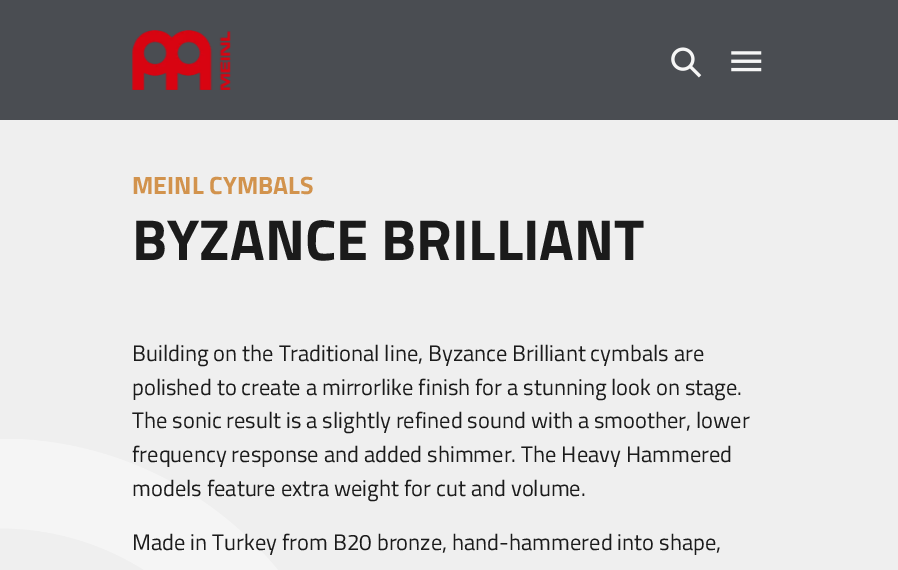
%!PS-Adobe-3.0
%%BoundingBox: 0 0 898 570
%%LanguageLevel: 3
%%Pages: 1
%%EndComments
%%BeginProlog
/setink { dup -16 bitshift 255 div exch dup -8 bitshift 255 and 255 div exch 255 and 255 div setrgbcolor } def
/usefont { [ exch dup neg 0 0 3 -1 roll 0 0 ] selectfont } def
/drawimage { 5 dict begin { /h /w /y /x /name } { exch def } forall
  gsave x y translate w h scale
  w h 8 [w 0 0 h 0 0] name (r) file false 3 colorimage grestore end } def
%%EndProlog
%%BeginSetup
<< /PageSize [898 570] >> setpagedevice
%%EndSetup
%%Page: 1 1
0 570 translate 1 -1 scale
4 setmiterlimit
16#EFEFEF setink
0 0 898 570 rectfill
16#4A4D52 setink
0 0 898 120 rectfill
(img1.raw) 132 30 99 60 drawimage
(img2.raw) 671 47 31 31 drawimage
(img3.raw) 731 51 31 21 drawimage
/TitilliumWeb-Bold 25 usefont
16#D2934D setink
132 194 moveto (MEINL CYMBALS) show
/TitilliumWeb-Bold 57.75 usefont
16#1B1B1B setink
132 260 moveto (BYZANCE BRILLIANT) show
/TitilliumWeb-Regular 22.5 usefont
[
    [(Building on the Traditional line, Byzance Brilliant cymbals are) 132 361]
    [(polished to create a mirrorlike finish for a stunning look on stage.) 132 395]
    [(The sonic result is a slightly refined sound with a smoother, lower) 132 428]
] { aload pop moveto show } forall
(img4.raw) 0 439 278 131 drawimage
[
    [(frequency response and added shimmer. The Heavy Hammered) 132 462]
    [(models feature extra weight for cut and volume.) 132 496]
    [(Made in Turkey from B20 bronze, hand-hammered into shape,) 132 550]
] { aload pop moveto show } forall
showpage
%%EOF
